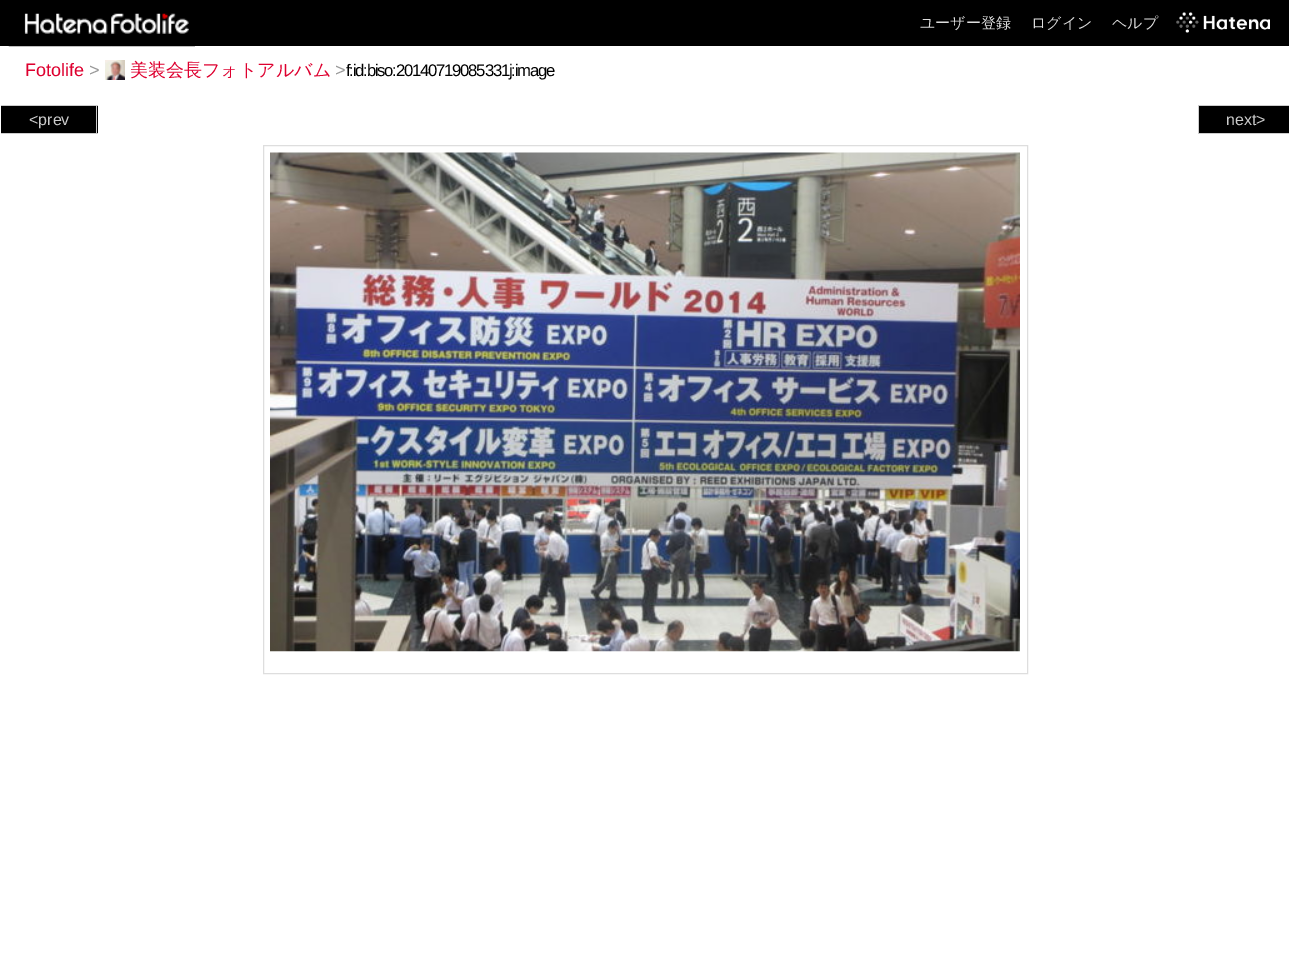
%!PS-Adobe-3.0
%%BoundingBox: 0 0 1289 975
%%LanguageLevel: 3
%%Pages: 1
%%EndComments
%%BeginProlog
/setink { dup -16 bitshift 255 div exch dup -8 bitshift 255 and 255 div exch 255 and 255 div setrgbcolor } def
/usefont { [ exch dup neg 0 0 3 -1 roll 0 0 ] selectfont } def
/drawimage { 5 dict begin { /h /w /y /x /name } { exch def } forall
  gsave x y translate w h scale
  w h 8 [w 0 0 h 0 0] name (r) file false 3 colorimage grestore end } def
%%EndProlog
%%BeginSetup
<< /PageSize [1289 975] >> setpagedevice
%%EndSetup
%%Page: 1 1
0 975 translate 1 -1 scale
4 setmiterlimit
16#FFFFFF setink
0 0 1289 975 rectfill
16#000000 setink
0 0 1289 46 rectfill
(img1.raw) 8 13 104 34 drawimage
(img2.raw) 111 13 84 34 drawimage
/WenQuanYiZenHei-Medium 15 usefont
16#DDDDDD setink
[
    [(ユーザー登録) 920 28]
    [(ログイン) 1031 28]
    [(ヘルプ) 1112 28]
] { aload pop moveto show } forall
(img3.raw) 1176 12 94 21 drawimage
/LiberationSans-Regular 18 usefont
16#DE002F setink
25 76 moveto (Fotolife) show
16#999999 setink
89 76 moveto (>) show
(img4.raw) 105 60 20 20 drawimage
/WenQuanYiZenHei-Medium 18 usefont
16#DE002F setink
130 76 moveto (美装会長フォトアルバム) show
/LiberationSans-Regular 18 usefont
16#999999 setink
335 76 moveto (>) show
/LiberationSans-Regular 16.75 usefont
16#000000 setink
346 76 moveto -1.25 0 (f:id:biso:20140719085331j:image) ashow
[
    [1 106 97 27 16#000000]
    [1 105 97 1 16#CCCCCC]
    [96 105 1 29 16#CCCCCC]
    [1 133 97 1 16#CCCCCC]
] { aload pop setink rectfill } forall
/LiberationSans-Regular 16 usefont
29 125 moveto (<prev) show
[
    [1199 106 90 27 16#000000]
    [1198 105 91 1 16#CCCCCC]
    [1198 133 91 1 16#CCCCCC]
    [1198 105 1 29 16#CCCCCC]
] { aload pop setink rectfill } forall
1226 125 moveto (next>) show
16#DEDEDE setink
263.5 145.5 764 528 rectstroke
(img5.raw) 270 152 750 500 drawimage
showpage
%%EOF
